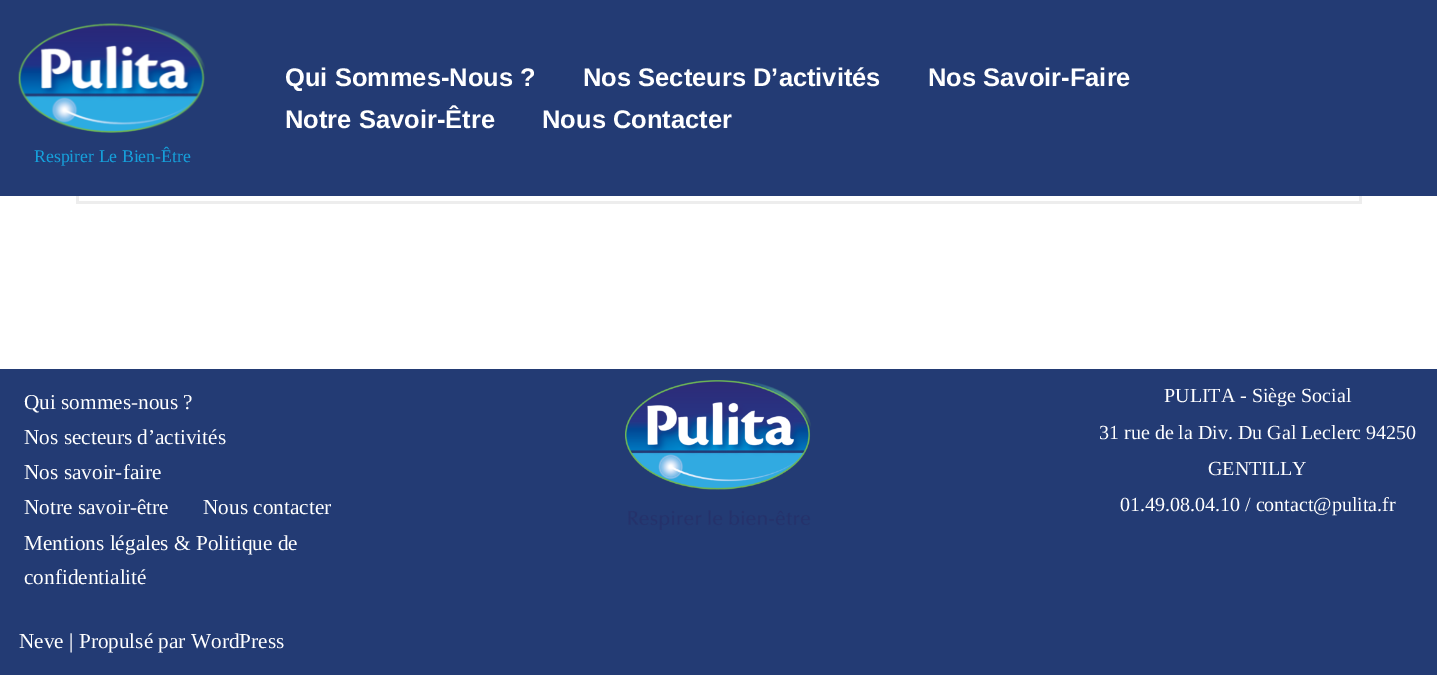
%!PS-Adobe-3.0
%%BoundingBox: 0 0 1437 675
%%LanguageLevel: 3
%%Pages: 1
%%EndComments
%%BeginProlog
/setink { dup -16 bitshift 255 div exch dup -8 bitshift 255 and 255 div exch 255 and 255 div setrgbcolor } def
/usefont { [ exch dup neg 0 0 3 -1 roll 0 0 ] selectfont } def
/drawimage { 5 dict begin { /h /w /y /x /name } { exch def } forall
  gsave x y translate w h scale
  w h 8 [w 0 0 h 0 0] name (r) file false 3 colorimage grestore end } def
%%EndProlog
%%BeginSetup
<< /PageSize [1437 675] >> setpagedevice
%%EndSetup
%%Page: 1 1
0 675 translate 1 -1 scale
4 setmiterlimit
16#FFFFFF setink
0 0 1437 675 rectfill
16#233B74 setink
0 0 1437 196 rectfill
/LiberationSans-Bold 25.5 usefont
16#FFFFFF setink
[
    [(Qui Sommes-Nous ?) 285 86]
    [(Nos Secteurs D’activités) 583 86]
    [(Nos Savoir-Faire) 928 86]
    [(Notre Savoir-Être) 285 128]
    [(Nous Contacter) 542 128]
] { aload pop moveto show } forall
(img1.raw) 18 23 187 110 drawimage
/LiberationSerif-Regular 17.75 usefont
16#16A0DB setink
34 162 moveto (Respirer Le Bien-Être) show
[
    [76 201 1229 3 16#EDEDED]
    [76 196 3 8 16#EDEDED]
    [1359 196 3 8 16#EDEDED]
    [1305 201 56 3 16#EDEDED]
    [0 369 1437 306 16#233B74]
] { aload pop setink rectfill } forall
/LiberationSerif-Regular 21.25 usefont
16#FFFFFF setink
[
    [(Qui sommes-nous ?) 24 409]
    [(Nos secteurs d’activités) 24 444]
    [(Nos savoir-faire) 24 479]
    [(Notre savoir-être) 24 514]
    [(Nous contacter) 203 514]
    [(Mentions légales & Politique de) 24 550]
    [(confidentialité) 24 584]
    [(Neve | Propulsé par WordPress) 19 648]
] { aload pop moveto show } forall
(img2.raw) 625 380 186 150 drawimage
/LiberationSerif-Regular 20 usefont
[
    [(PULITA - Siège Social) 1164 402]
    [(31 rue de la Div. Du Gal Leclerc 94250) 1099 439]
    [(GENTILLY) 1208 475]
    [(01.49.08.04.10 / contact@pulita.fr) 1120 511]
] { aload pop moveto show } forall
showpage
%%EOF
